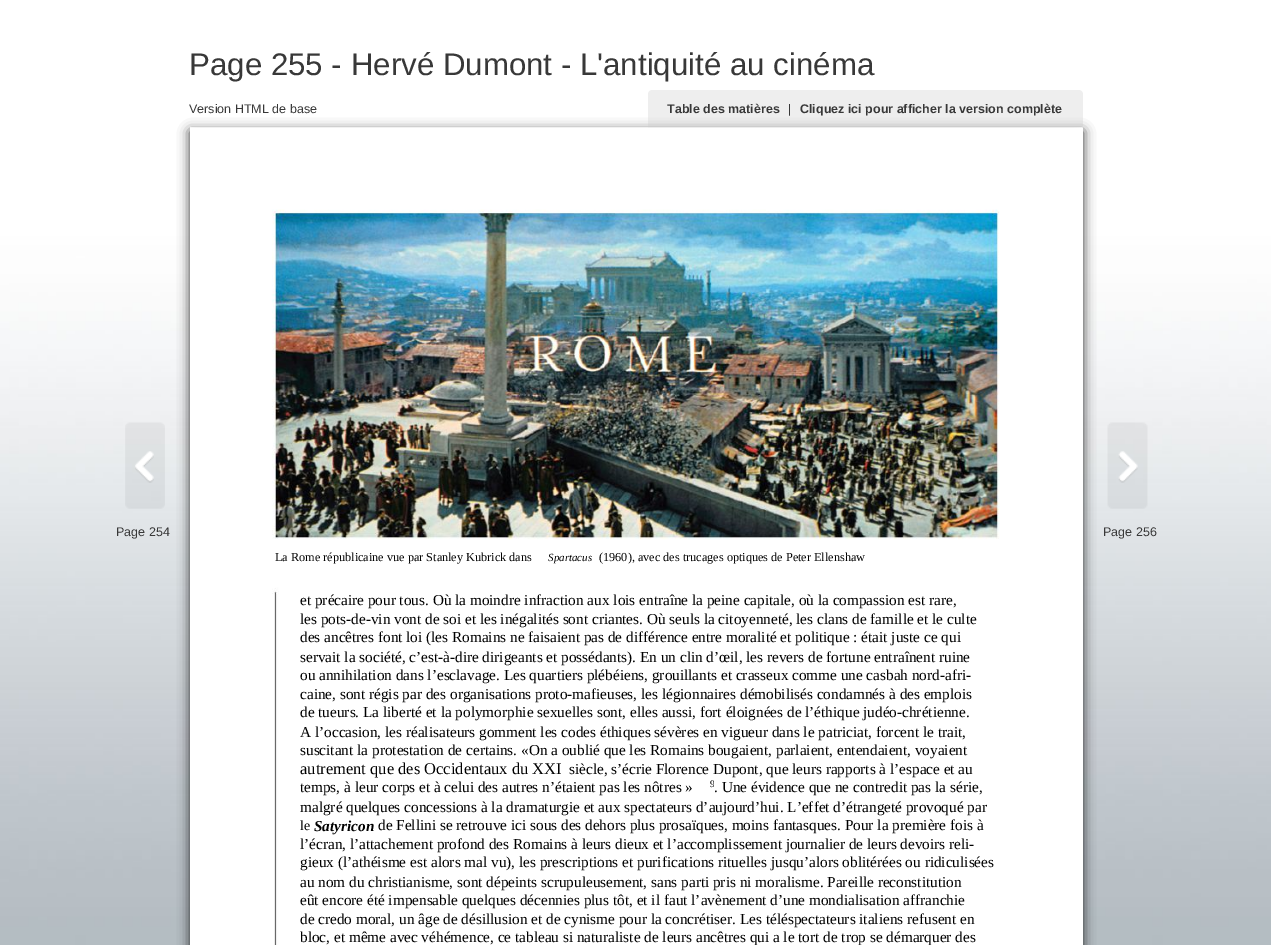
%!PS-Adobe-3.0
%%BoundingBox: 0 0 1271 945
%%LanguageLevel: 3
%%Pages: 1
%%EndComments
%%BeginProlog
/setink { dup -16 bitshift 255 div exch dup -8 bitshift 255 and 255 div exch 255 and 255 div setrgbcolor } def
/usefont { [ exch dup neg 0 0 3 -1 roll 0 0 ] selectfont } def
/setalpha { dup .setfillconstantalpha .setstrokeconstantalpha } def
/rrect { 5 dict begin { /r /h /w /y /x } { exch def } forall
  x r add y moveto x w add y 2 copy h add r arct x w add y h add x 1 index r arct
  x y h add x y r arct x y 2 copy exch w add exch r arct closepath end } def
/softshadow { 12 dict begin { /a /b /q /h /w /y /x } { exch def } forall gsave /was 0 def
  9 -2 -9 { dup b mul 4 div /e exch def 1 sub .425 mul 2.718 exch exp 1 add a .99 .min exch div /now exch def
    1 1 now sub 1 was sub div sub setalpha /was now def
    w h .min e 2 mul add 0 gt { x e sub y e sub w e 2 mul add h e 2 mul add
      q e add b .6 mul add w h .min 2 div e add .min 0 .max rrect fill } if } for grestore end } def
/drawimage { 5 dict begin { /h /w /y /x /name } { exch def } forall
  gsave x y translate w h scale
  w h 8 [w 0 0 h 0 0] name (r) file false 3 colorimage grestore end } def
%%EndProlog
%%BeginSetup
<< /PageSize [1271 945] /PageUsesTransparency true >> setpagedevice
%%EndSetup
%%Page: 1 1
0 .pushpdf14devicefilter
0 945 translate 1 -1 scale
4 setmiterlimit
16#FFFFFF setink
0 0 1271 945 rectfill
(img1.raw) 0 0 1271 945 drawimage
/LiberationSans-Regular 31.25 usefont
16#383838 setink
189 75 moveto (Page 255 - Hervé Dumont - L'antiquité au cinéma) show
/LiberationSans-Regular 12.5 usefont
189 113 moveto (Version HTML de base) show
16#000000 setink
190 131 893 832 0 6 0.8 softshadow
0.3 setalpha
16#C8C8C8 setink
652 90 moveto 1079 90 lineto 1081 90 1083 92 1083 94 curveto 1083 128 lineto 648 128 lineto 648 94 lineto 648 92 650 90 652 90 curveto closepath fill
/LiberationSans-Bold 12.5 usefont
1 setalpha
16#383838 setink
667 113 moveto (Table des matières) show
/LiberationSans-Regular 12.5 usefont
788 113 moveto (|) show
/LiberationSans-Bold 12.5 usefont
800 113 moveto (Cliquez ici pour afficher la version complète) show
16#FFFFFF setink
1082 128 1 817 rectfill
(img2.raw) 125 422 40 87 drawimage
/LiberationSans-Regular 12.5 usefont
16#383838 setink
116 536 moveto (Page 254) show
(img3.raw) 1107 422 41 87 drawimage
1103 536 moveto (Page 256) show
(img4.raw) 190 127 893 818 drawimage
/LiberationSerif-Regular 12.25 usefont
16#000000 setink
275 561 moveto (La Rome républicaine vue par Stanley Kubrick dans) show
/LiberationSerif-Italic 11 usefont
548 561 moveto (Spartacus) show
/LiberationSerif-Regular 12.25 usefont
599 561 moveto (\(1960\), avec des trucages optiques de Peter Ellenshaw) show
/LiberationSerif-Regular 15.25 usefont
[
    [(et précaire pour tous. Où la moindre infraction aux lois entraîne la peine capitale, où la compassion est rare,) 300 605]
    [(les pots-de-vin vont de soi et les inégalités sont criantes. Où seuls la citoyenneté, les clans de famille et le culte) 300 624]
    [(des ancêtres font loi \(les Romains ne faisaient pas de différence entre moralité et politique : était juste ce qui) 300 642]
    [(servait la société, c’est-à-dire dirigeants et possédants\). En un clin d’œil, les revers de fortune entraînent ruine) 300 662]
    [(ou annihilation dans l’esclavage. Les quartiers plébéiens, grouillants et crasseux comme une casbah nord-afri-) 300 680]
    [(caine, sont régis par des organisations proto-mafieuses, les légionnaires démobilisés condamnés à des emplois) 300 699]
    [(de tueurs. La liberté et la polymorphie sexuelles sont, elles aussi, fort éloignées de l’éthique judéo-chrétienne.) 300 717]
    [(A l’occasion, les réalisateurs gomment les codes éthiques sévères en vigueur dans le patriciat, forcent le trait,) 300 737]
    [(suscitant la protestation de certains. «On a oublié que les Romains bougaient, parlaient, entendaient, voyaient) 300 755]
] { aload pop moveto show } forall
/LiberationSerif-Regular 16.5 usefont
300 774 moveto (autrement que des Occidentaux du XXI) show
/LiberationSerif-Regular 15.25 usefont
569 774 moveto (siècle, s’écrie Florence Dupont, que leurs rapports à l’espace et au) show
300 792 moveto (temps, à leur corps et à celui des autres n’étaient pas les nôtres ») show
gsave
710 778 4 15 rectclip
/LiberationSerif-Regular 10 usefont
710 787 moveto (9) show
grestore
714 792 moveto (. Une évidence que ne contredit pas la série,) show
300 812 moveto (malgré quelques concessions à la dramaturgie et aux spectateurs d’aujourd’hui. L’effet d’étrangeté provoqué par) show
/LiberationSerif-Regular 14 usefont
300 830 moveto (le) show
/LiberationSerif-BoldItalic 15.25 usefont
314 831 moveto (Satyricon) show
/LiberationSerif-Regular 15.25 usefont
[
    [(de Fellini se retrouve ici sous des dehors plus prosaïques, moins fantasques. Pour la première fois à) 378 830]
    [(l’écran, l’attachement profond des Romains à leurs dieux et l’accomplissement journalier de leurs devoirs reli-) 300 849]
    [(gieux \(l’athéisme est alors mal vu\), les prescriptions et purifications rituelles jusqu’alors oblitérées ou ridiculisées) 300 867]
    [(au nom du christianisme, sont dépeints scrupuleusement, sans parti pris ni moralisme. Pareille reconstitution) 300 887]
    [(eût encore été impensable quelques décennies plus tôt, et il faut l’avènement d’une mondialisation affranchie) 300 905]
    [(de credo moral, un âge de désillusion et de cynisme pour la concrétiser. Les téléspectateurs italiens refusent en) 300 924]
    [(bloc, et même avec véhémence, ce tableau si naturaliste de leurs ancêtres qui a le tort de trop se démarquer des) 300 942]
] { aload pop moveto show } forall
.poppdf14devicefilter showpage
%%EOF
